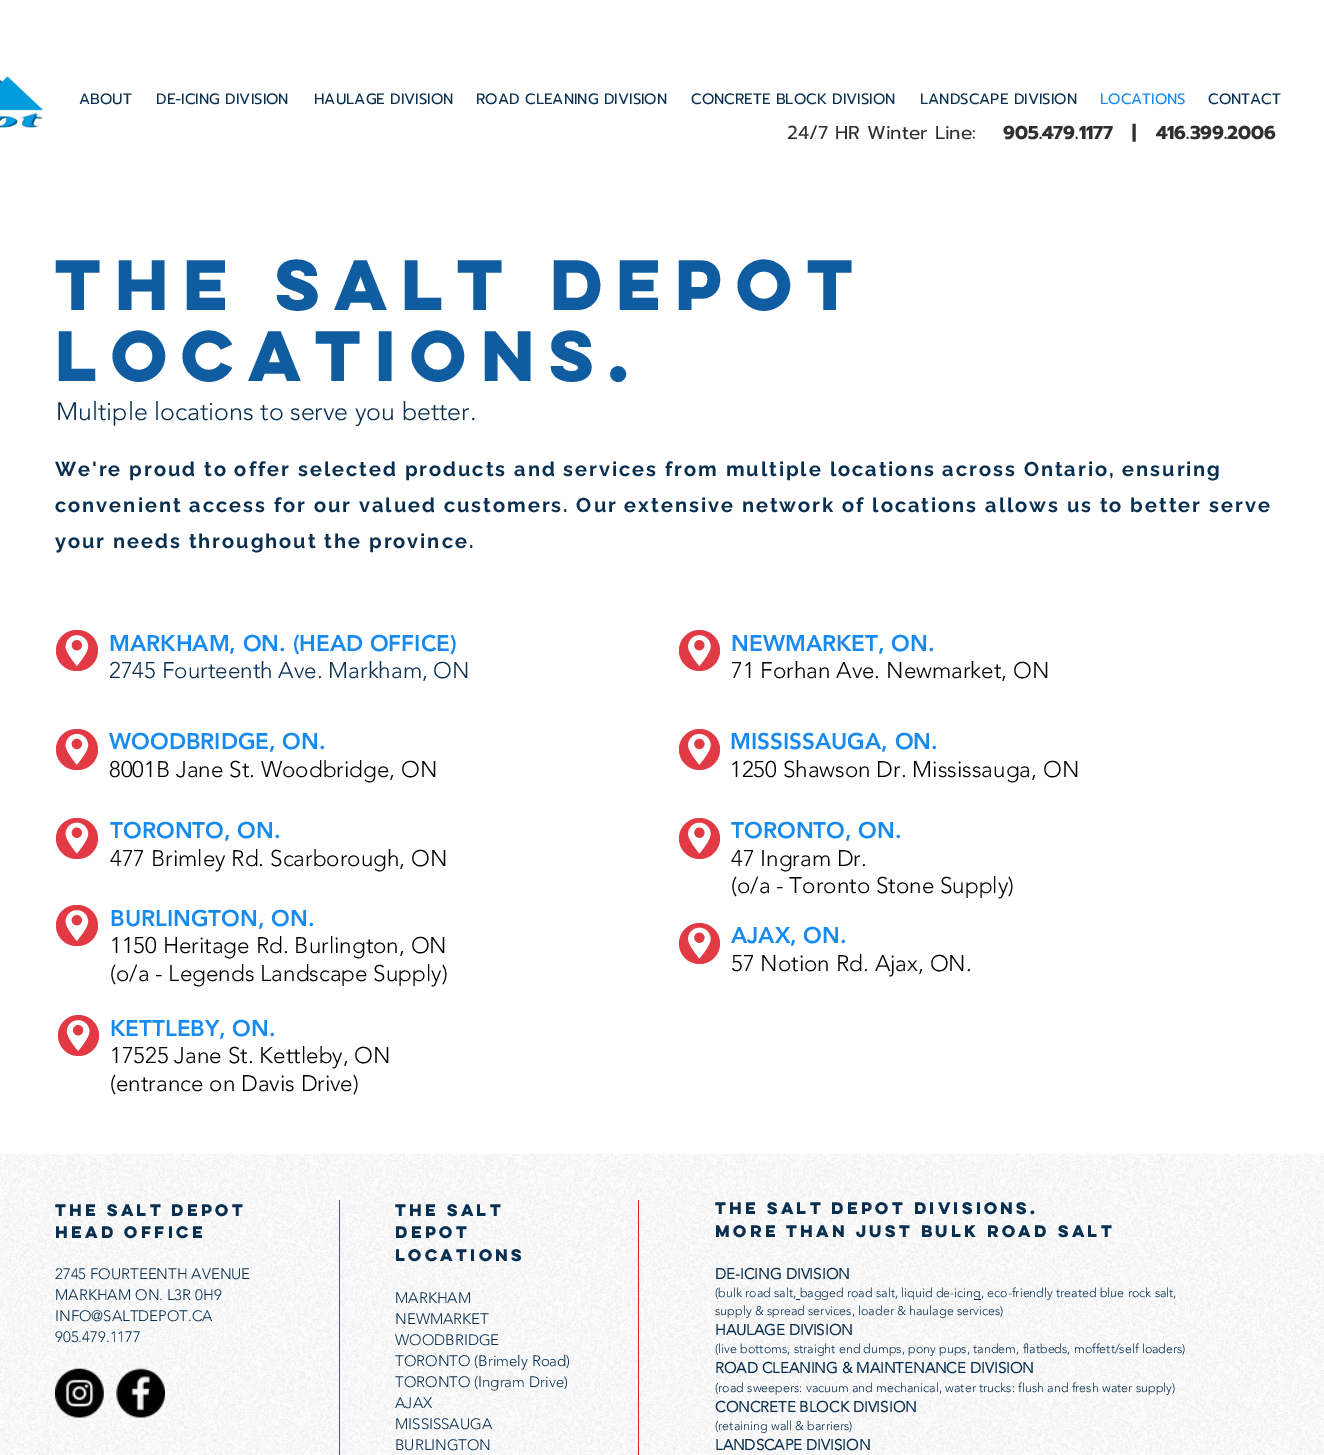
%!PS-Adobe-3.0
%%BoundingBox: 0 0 1324 1455
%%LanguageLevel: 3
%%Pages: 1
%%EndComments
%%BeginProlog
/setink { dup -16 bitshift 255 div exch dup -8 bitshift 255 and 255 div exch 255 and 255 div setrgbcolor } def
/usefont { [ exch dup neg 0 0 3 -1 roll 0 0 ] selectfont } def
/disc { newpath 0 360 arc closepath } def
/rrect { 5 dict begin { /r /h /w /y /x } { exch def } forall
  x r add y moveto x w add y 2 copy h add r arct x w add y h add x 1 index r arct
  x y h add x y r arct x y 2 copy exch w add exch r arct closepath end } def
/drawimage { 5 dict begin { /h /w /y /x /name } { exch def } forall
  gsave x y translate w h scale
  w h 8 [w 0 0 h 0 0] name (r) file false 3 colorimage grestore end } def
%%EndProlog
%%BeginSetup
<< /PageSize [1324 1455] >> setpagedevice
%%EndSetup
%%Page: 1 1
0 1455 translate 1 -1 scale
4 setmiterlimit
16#FFFFFF setink
0 0 1324 1455 rectfill
(img1.raw) 0 76 44 52 drawimage
/Prompt-Regular 15 usefont
16#082E50 setink
[
    [(ABOUT) 79 104]
    [(DE-ICING DIVISION) 156 104]
    [(HAULAGE DIVISION) 314 104]
    [(ROAD CLEANING DIVISION) 476 104]
    [(CONCRETE BLOCK DIVISION) 691 104]
    [(LANDSCAPE DIVISION) 920 104]
] { aload pop moveto show } forall
16#178AF0 setink
1100 104 moveto (LOCATIONS) show
16#082E50 setink
1208 104 moveto (CONTACT) show
/Prompt-Regular 18.75 usefont
16#303030 setink
787 139 moveto (24/7 HR Winter Line:) show
/Prompt-Bold 18.75 usefont
1003 139 moveto (905.479.1177   |   416.399.2006) show
/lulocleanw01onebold-Bold 63.75 usefont
16#0F5CA0 setink
55 310 moveto (the SAlt depot) show
55 381 moveto (LOCATIONS.) show
/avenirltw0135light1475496-Light 25 usefont
16#082E50 setink
56 420 moveto (Multiple locations to serve you better.) show
/Raleway-Bold 20 usefont
55 476 moveto 2 0 (We're proud to offer selected products and services from multiple locations across Ontario, ensuring) ashow
55 512 moveto 2 0 (convenient access for our valued customers. Our extensive network of locations allows us to better serve) ashow
55 548 moveto 2 0 (your needs throughout the province.) ashow
16#E13A44 setink
56 630 42 41 20.5 rrect fill
(img2.raw) 65 635 24 31 drawimage
/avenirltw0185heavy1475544-Black 22.5 usefont
16#178AF0 setink
109 651 moveto (MARKHAM, ON. \(HEAD OFFICE\)) show
/avenirltw0135light1475496-Light 22.5 usefont
16#082E50 setink
109 678 moveto (2745 Fourteenth Ave. Markham, ON) show
16#E13A44 setink
699.5 650.5 20.5 disc fill
(img3.raw) 688 635 23 31 drawimage
/avenirltw0185heavy1475544-Black 22.5 usefont
16#178AF0 setink
731 651 moveto (NEWMARKET, ON.) show
/avenirltw0135light1475496-Light 22.5 usefont
16#000000 setink
731 678 moveto (71 Forhan Ave. Newmarket, ON) show
16#E13A44 setink
56 729 42 41 20.5 rrect fill
(img4.raw) 65 733 24 32 drawimage
/avenirltw0185heavy1475544-Black 22.5 usefont
16#178AF0 setink
109 749 moveto (WOODBRIDGE, ON.) show
/avenirltw0135light1475496-Light 22.5 usefont
16#000000 setink
109 777 moveto (8001B Jane St. Woodbridge, ON) show
16#E13A44 setink
699.5 749.5 20.5 disc fill
(img5.raw) 688 733 23 32 drawimage
/avenirltw0185heavy1475544-Black 22.5 usefont
16#178AF0 setink
730 749 moveto (MISSISSAUGA, ON.) show
/avenirltw0135light1475496-Light 22.5 usefont
16#000000 setink
730 777 moveto (1250 Shawson Dr. Mississauga, ON) show
16#E13A44 setink
56 818 42 41 20.5 rrect fill
(img6.raw) 65 822 24 32 drawimage
/avenirltw0185heavy1475544-Black 22.5 usefont
16#178AF0 setink
110 838 moveto (TORONTO, ON.) show
/avenirltw0135light1475496-Light 22.5 usefont
16#000000 setink
110 866 moveto (477 Brimley Rd. Scarborough, ON) show
16#E13A44 setink
699.5 838.5 20.5 disc fill
(img7.raw) 688 822 23 32 drawimage
/avenirltw0185heavy1475544-Black 22.5 usefont
16#178AF0 setink
731 838 moveto (TORONTO, ON.) show
/avenirltw0135light1475496-Light 22.5 usefont
16#000000 setink
731 866 moveto (47 Ingram Dr.) show
731 893 moveto (\(o/a - Toronto Stone Supply\)) show
16#E13A44 setink
56 905 42 41 20.5 rrect fill
(img2.raw) 65 910 24 31 drawimage
/avenirltw0185heavy1475544-Black 22.5 usefont
16#178AF0 setink
110 926 moveto (BURLINGTON, ON.) show
/avenirltw0135light1475496-Light 22.5 usefont
16#000000 setink
110 953 moveto (1150 Heritage Rd. Burlington, ON) show
110 981 moveto (\(o/a - Legends Landscape Supply\)) show
16#E13A44 setink
699.5 943.5 20.5 disc fill
(img7.raw) 688 927 23 32 drawimage
/avenirltw0185heavy1475544-Black 22.5 usefont
16#178AF0 setink
731 943 moveto (AJAX, ON.) show
/avenirltw0135light1475496-Light 22.5 usefont
16#000000 setink
731 971 moveto (57 Notion Rd. Ajax, ON.) show
16#E13A44 setink
78.5 1035.5 20.5 disc fill
(img8.raw) 66 1020 24 31 drawimage
/avenirltw0185heavy1475544-Black 22.5 usefont
16#178AF0 setink
110 1036 moveto (KETTLEBY, ON.) show
/avenirltw0135light1475496-Light 22.5 usefont
16#000000 setink
110 1063 moveto (17525 Jane St. Kettleby, ON) show
110 1091 moveto (\(entrance on Davis Drive\)) show
(img9.raw) 0 1154 1324 301 drawimage
/lulocleanw01onebold-Bold 15 usefont
16#082E50 setink
55 1216 moveto (THE SALT DEPOT) show
55 1238 moveto (HEAD OFFICE) show
/avenirltw0135light1475496-Light 15 usefont
[
    [(2745 FOURTEENTH AVENUE) 55 1279]
    [(MARKHAM ON. L3R 0H9) 55 1300]
    [(INFO@SALTDEPOT.CA) 55 1321]
    [(905.479.1177) 55 1342]
] { aload pop moveto show } forall
16#E21C21 setink
339 1200 1 255 rectfill
/lulocleanw01onebold-Bold 15 usefont
16#082E50 setink
[
    [(the SALT) 395 1216]
    [(DEPOT) 395 1238]
    [(LOCATIONS) 395 1261]
] { aload pop moveto show } forall
/avenirltw0135light1475496-Light 15 usefont
[
    [(MARKHAM) 395 1303]
    [(NEWMARKET) 395 1324]
    [(WOODBRIDGE) 395 1345]
    [(TORONTO \(Brimely Road\)) 395 1366]
    [(TORONTO \(Ingram Drive\)) 395 1387]
    [(AJAX) 395 1408]
    [(MISSISSAUGA) 395 1429]
    [(BURLINGTON) 395 1450]
] { aload pop moveto show } forall
16#E21C21 setink
638 1200 1 255 rectfill
/lulocleanw01onebold-Bold 15 usefont
16#082E50 setink
715 1214 moveto (THE SALT DEPOT DIVISIONs.) show
715 1237 moveto (MORE THAN JUST BULK ROAD SALT) show
/avenirltw0135light1475496-Bold 15 usefont
715 1279 moveto (DE-ICING DIVISION) show
/avenirltw0135light1475496-Light 12.5 usefont
715 1297 moveto (\(bulk road salt, bagged road salt, liquid de-icin) show
974 1299 7 1 rectfill
973 1297 moveto (g, eco-friendly treated blue rock salt,) show
715 1315 moveto (supply & spread services, loader & haulage services\)) show
796 1299 4 1 rectfill
/avenirltw0135light1475496-Bold 15 usefont
715 1335 moveto (HAULAGE DIVISION) show
/avenirltw0135light1475496-Light 12.5 usefont
715 1353 moveto (\(live bottoms, straight end dumps, pony pups, tandem, flatbeds, moffett/self loaders\)) show
/avenirltw0135light1475496-Bold 15 usefont
715 1373 moveto (ROAD CLEANING & MAINTENANCE DIVISION) show
/avenirltw0135light1475496-Light 12.5 usefont
715 1392 moveto (\(road sweepers: vacuum and mechanical, water trucks: flush and fresh water supply\)) show
/avenirltw0135light1475496-Bold 15 usefont
715 1412 moveto (CONCRETE BLOCK DIVISION) show
/avenirltw0135light1475496-Light 12.5 usefont
715 1430 moveto (\(retaining wall & barriers\)) show
/avenirltw0135light1475496-Bold 15 usefont
715 1450 moveto (LANDSCAPE DIVISION) show
(img10.raw) 55 1368 49 50 drawimage
(img11.raw) 116 1368 49 50 drawimage
showpage
%%EOF
